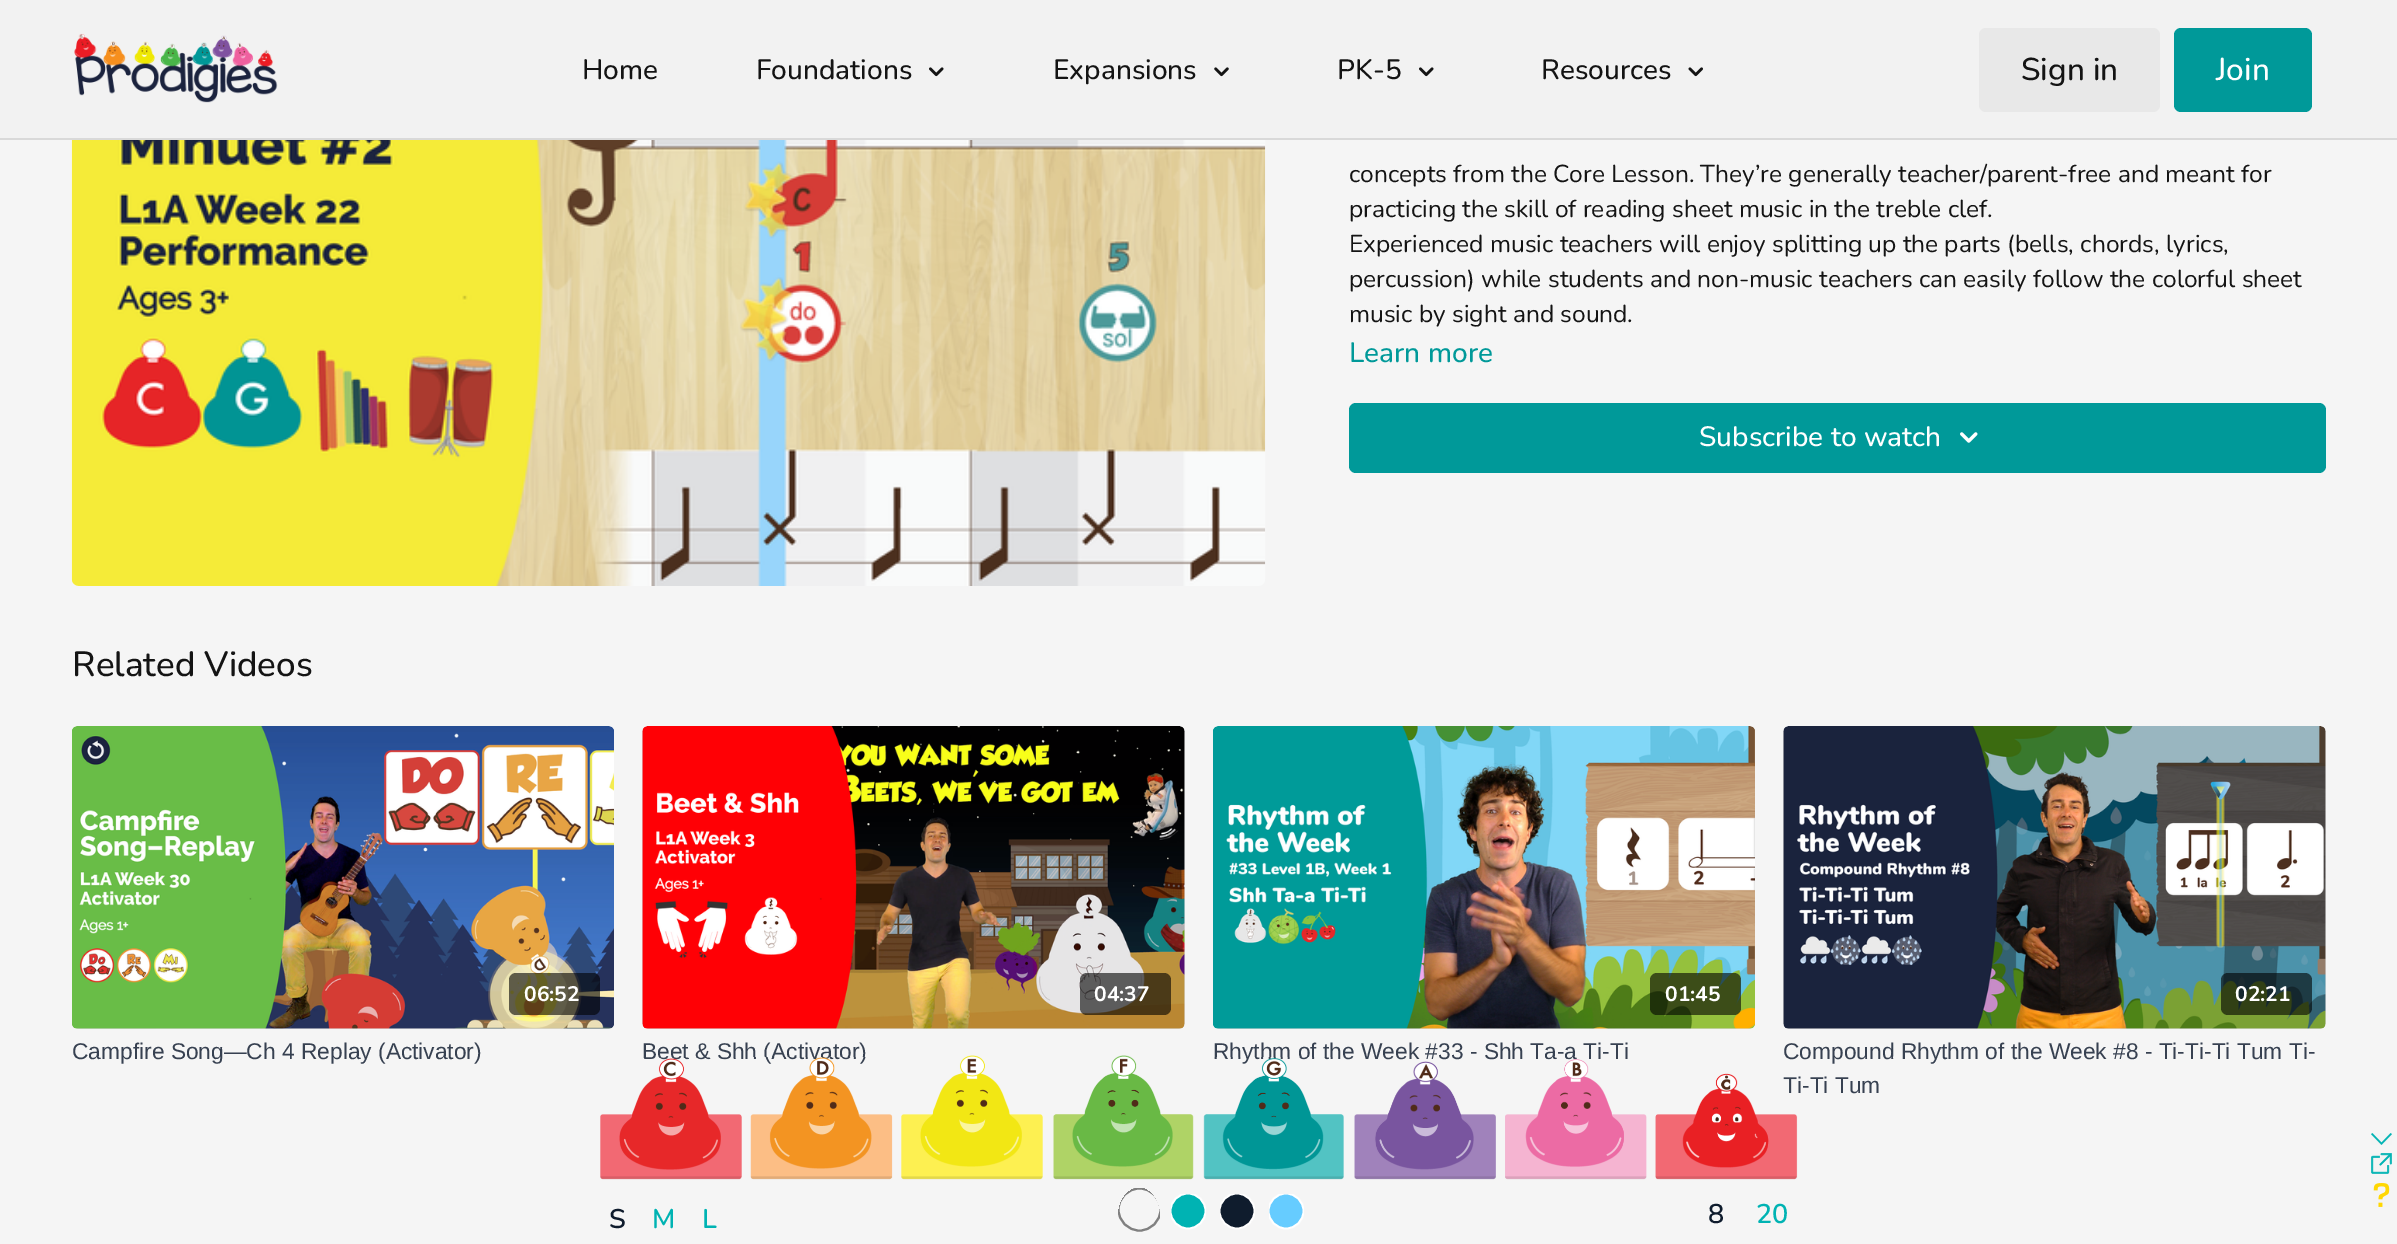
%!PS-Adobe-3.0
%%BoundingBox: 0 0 2397 1244
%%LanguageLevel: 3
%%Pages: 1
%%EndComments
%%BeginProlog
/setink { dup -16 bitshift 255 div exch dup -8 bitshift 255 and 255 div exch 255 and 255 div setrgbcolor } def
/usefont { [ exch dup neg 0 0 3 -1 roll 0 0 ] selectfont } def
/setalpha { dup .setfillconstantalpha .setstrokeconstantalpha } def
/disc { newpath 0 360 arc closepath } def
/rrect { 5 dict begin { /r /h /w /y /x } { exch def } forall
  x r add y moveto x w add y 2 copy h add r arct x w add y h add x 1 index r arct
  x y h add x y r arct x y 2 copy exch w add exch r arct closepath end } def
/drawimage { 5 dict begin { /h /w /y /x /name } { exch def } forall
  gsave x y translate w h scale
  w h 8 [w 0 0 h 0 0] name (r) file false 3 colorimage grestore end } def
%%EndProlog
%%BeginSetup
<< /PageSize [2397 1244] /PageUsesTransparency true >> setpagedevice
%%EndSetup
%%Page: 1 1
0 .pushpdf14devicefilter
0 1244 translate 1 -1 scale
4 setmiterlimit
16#F5F5F5 setink
0 0 2397 1244 rectfill
16#F2F2F2 setink
0 0 2397 138 rectfill
16#D9D9D9 setink
0 138 2397 2 rectfill
(img1.raw) 74 33 204 70 drawimage
/Nunito-Medium 28 usefont
16#141414 setink
582 79 moveto (Home) show
756 79 moveto (Foundations) show
(img2.raw) 929 67 15 10 drawimage
1053 79 moveto (Expansions) show
(img3.raw) 1214 67 15 10 drawimage
1337 79 moveto (PK-5) show
(img2.raw) 1419 67 15 10 drawimage
1541 79 moveto (Resources) show
(img4.raw) 1688 67 15 10 drawimage
16#E8E8E8 setink
1979 28 181 84 7 rrect fill
/Nunito-Medium 31.5 usefont
16#141414 setink
2021 80 moveto (Sign in) show
16#009999 setink
2174 28 138 84 7 rrect fill
16#FFFFFF setink
2216 80 moveto (Join) show
(img5.raw) 71 140 1195 446 drawimage
/Nunito-Regular 24.5 usefont
16#141414 setink
[
    [(concepts from the Core Lesson. They’re generally teacher/parent-free and meant for) 1349 182]
    [(practicing the skill of reading sheet music in the treble clef.) 1349 217]
    [(Experienced music teachers will enjoy splitting up the parts \(bells, chords, lyrics,) 1349 252]
    [(percussion\) while students and non-music teachers can easily follow the colorful sheet) 1349 287]
    [(music by sight and sound.) 1349 322]
] { aload pop moveto show } forall
/Nunito-Medium 28 usefont
16#009999 setink
1349 362 moveto (Learn more) show
1349 403 977 70 7 rrect fill
16#FFFFFF setink
1699 446 moveto (Subscribe to watch) show
(img6.raw) 1960 432 18 11 drawimage
/Nunito-Medium 35 usefont
16#141414 setink
72 676 moveto (Related Videos) show
gsave 72 726 542 303 7 rrect clip newpath
<< /ShadingType 2 /ColorSpace /DeviceRGB /Coords [72 878 614 878] /Extend [true true] /Function << /FunctionType 3 /Domain [0 1] /Functions [<< /FunctionType 2 /Domain [0 1] /C0 [0.835 0.835 0.835] /C1 [0.835 0.835 0.835] /N 1 >> << /FunctionType 2 /Domain [0 1] /C0 [0.835 0.835 0.835] /C1 [0.843 0.843 0.843] /N 1 >> << /FunctionType 2 /Domain [0 1] /C0 [0.843 0.843 0.843] /C1 [0.855 0.855 0.855] /N 1 >> << /FunctionType 2 /Domain [0 1] /C0 [0.855 0.855 0.855] /C1 [0.855 0.855 0.855] /N 1 >>] /Bounds [0.08 0.18 0.33] /Encode [0 1 0 1 0 1 0 1] >> >> shfill grestore
(img7.raw) 72 726 542 303 drawimage
0.6 setalpha
16#000000 setink
509 973 91 42 7 rrect fill
/Nunito-Bold 21 usefont
1 setalpha
16#FFFFFF setink
524 1001 moveto (06:52) show
/LiberationSans-Regular 22.75 usefont
16#374151 setink
72 1059 moveto (Campfire Song—Ch 4 Replay \(Activator\)) show
gsave 642 726 543 303 7 rrect clip newpath
<< /ShadingType 2 /ColorSpace /DeviceRGB /Coords [642 878 1185 878] /Extend [true true] /Function << /FunctionType 3 /Domain [0 1] /Functions [<< /FunctionType 2 /Domain [0 1] /C0 [0.835 0.835 0.835] /C1 [0.835 0.835 0.835] /N 1 >> << /FunctionType 2 /Domain [0 1] /C0 [0.835 0.835 0.835] /C1 [0.843 0.843 0.843] /N 1 >> << /FunctionType 2 /Domain [0 1] /C0 [0.843 0.843 0.843] /C1 [0.855 0.855 0.855] /N 1 >> << /FunctionType 2 /Domain [0 1] /C0 [0.855 0.855 0.855] /C1 [0.855 0.855 0.855] /N 1 >>] /Bounds [0.08 0.18 0.33] /Encode [0 1 0 1 0 1 0 1] >> >> shfill grestore
(img8.raw) 642 726 543 303 drawimage
0.6 setalpha
16#000000 setink
1080 973 91 42 7 rrect fill
/Nunito-Bold 21 usefont
1 setalpha
16#FFFFFF setink
1094 1001 moveto (04:37) show
/LiberationSans-Regular 22.75 usefont
16#374151 setink
642 1059 moveto (Beet & Shh \(Activator\)) show
gsave 1213 726 542 303 7 rrect clip newpath
<< /ShadingType 2 /ColorSpace /DeviceRGB /Coords [1213 878 1755 878] /Extend [true true] /Function << /FunctionType 3 /Domain [0 1] /Functions [<< /FunctionType 2 /Domain [0 1] /C0 [0.835 0.835 0.835] /C1 [0.835 0.835 0.835] /N 1 >> << /FunctionType 2 /Domain [0 1] /C0 [0.835 0.835 0.835] /C1 [0.843 0.843 0.843] /N 1 >> << /FunctionType 2 /Domain [0 1] /C0 [0.843 0.843 0.843] /C1 [0.855 0.855 0.855] /N 1 >> << /FunctionType 2 /Domain [0 1] /C0 [0.855 0.855 0.855] /C1 [0.855 0.855 0.855] /N 1 >>] /Bounds [0.08 0.18 0.33] /Encode [0 1 0 1 0 1 0 1] >> >> shfill grestore
(img9.raw) 1213 726 542 303 drawimage
0.6 setalpha
16#000000 setink
1650 973 91 42 7 rrect fill
/Nunito-Bold 21 usefont
1 setalpha
16#FFFFFF setink
1665 1001 moveto (01:45) show
/LiberationSans-Regular 22.75 usefont
16#374151 setink
1213 1059 moveto (Rhythm of the Week #33 - Shh Ta-a Ti-Ti) show
gsave 1783 726 543 303 7 rrect clip newpath
<< /ShadingType 2 /ColorSpace /DeviceRGB /Coords [1783 878 2326 878] /Extend [true true] /Function << /FunctionType 3 /Domain [0 1] /Functions [<< /FunctionType 2 /Domain [0 1] /C0 [0.835 0.835 0.835] /C1 [0.835 0.835 0.835] /N 1 >> << /FunctionType 2 /Domain [0 1] /C0 [0.835 0.835 0.835] /C1 [0.843 0.843 0.843] /N 1 >> << /FunctionType 2 /Domain [0 1] /C0 [0.843 0.843 0.843] /C1 [0.855 0.855 0.855] /N 1 >> << /FunctionType 2 /Domain [0 1] /C0 [0.855 0.855 0.855] /C1 [0.855 0.855 0.855] /N 1 >>] /Bounds [0.08 0.18 0.33] /Encode [0 1 0 1 0 1 0 1] >> >> shfill grestore
(img10.raw) 1783 726 543 303 drawimage
0.6 setalpha
16#000000 setink
2221 973 91 42 7 rrect fill
/Nunito-Bold 21 usefont
1 setalpha
16#FFFFFF setink
2235 1001 moveto (02:21) show
/LiberationSans-Regular 22.75 usefont
16#374151 setink
1783 1059 moveto (Compound Rhythm of the Week #8 - Ti-Ti-Ti Tum Ti-) show
1783 1093 moveto (Ti-Ti Tum) show
(img11.raw) 2371 1133 21 12 drawimage
(img12.raw) 2371 1153 21 21 drawimage
(img13.raw) 2373 1183 17 24 drawimage
(img14.raw) 600 1058 142 122 drawimage
(img15.raw) 750 1057 143 123 drawimage
(img16.raw) 901 1055 142 125 drawimage
(img17.raw) 1053 1055 141 125 drawimage
(img18.raw) 1203 1057 141 123 drawimage
(img19.raw) 1354 1061 142 119 drawimage
(img20.raw) 1505 1059 142 121 drawimage
(img21.raw) 1655 1073 143 107 drawimage
/Nunito-SemiBold 27 usefont
16#0F1C2D setink
609 1228 moveto (S) show
16#00B3B3 setink
652 1228 moveto (M) show
702 1228 moveto (L) show
gsave
1139 1188 moveto 1150.5 1188 1160 1201.5 1160 1218 curveto 1160 1235 1150.5 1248 1139 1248 curveto 1127.5 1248 1118 1235 1118 1218 curveto 1118 1201.5 1127.5 1188 1139 1188 curveto closepath clip newpath
16#808080 setink
2.1 setlinewidth
1139.5 1209.5 21 disc stroke
grestore
gsave
1171 1194 35 49 rectclip
1188 1211 17.5 disc gsave fill grestore
16#FFFFFF setink
1.8 setlinewidth
stroke
grestore
gsave
1220 1194 35 49 rectclip
16#0F1C2D setink
1237 1211 17.5 disc gsave fill grestore
16#FFFFFF setink
1.8 setlinewidth
stroke
grestore
gsave
1269 1194 35 49 rectclip
16#66CCFF setink
1286 1211 17.5 disc gsave fill grestore
16#FFFFFF setink
1.8 setlinewidth
stroke
grestore
16#0F1C2D setink
1708 1223 moveto (8) show
16#00B3B3 setink
1756 1223 moveto (20) show
.poppdf14devicefilter showpage
%%EOF
